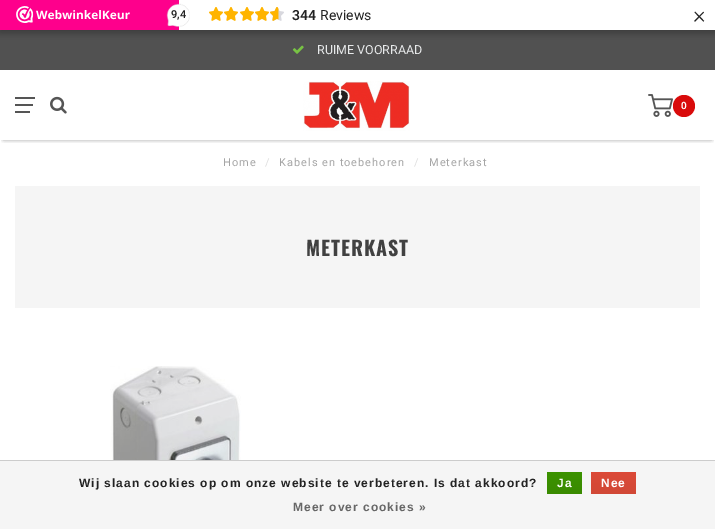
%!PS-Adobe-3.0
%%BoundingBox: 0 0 715 529
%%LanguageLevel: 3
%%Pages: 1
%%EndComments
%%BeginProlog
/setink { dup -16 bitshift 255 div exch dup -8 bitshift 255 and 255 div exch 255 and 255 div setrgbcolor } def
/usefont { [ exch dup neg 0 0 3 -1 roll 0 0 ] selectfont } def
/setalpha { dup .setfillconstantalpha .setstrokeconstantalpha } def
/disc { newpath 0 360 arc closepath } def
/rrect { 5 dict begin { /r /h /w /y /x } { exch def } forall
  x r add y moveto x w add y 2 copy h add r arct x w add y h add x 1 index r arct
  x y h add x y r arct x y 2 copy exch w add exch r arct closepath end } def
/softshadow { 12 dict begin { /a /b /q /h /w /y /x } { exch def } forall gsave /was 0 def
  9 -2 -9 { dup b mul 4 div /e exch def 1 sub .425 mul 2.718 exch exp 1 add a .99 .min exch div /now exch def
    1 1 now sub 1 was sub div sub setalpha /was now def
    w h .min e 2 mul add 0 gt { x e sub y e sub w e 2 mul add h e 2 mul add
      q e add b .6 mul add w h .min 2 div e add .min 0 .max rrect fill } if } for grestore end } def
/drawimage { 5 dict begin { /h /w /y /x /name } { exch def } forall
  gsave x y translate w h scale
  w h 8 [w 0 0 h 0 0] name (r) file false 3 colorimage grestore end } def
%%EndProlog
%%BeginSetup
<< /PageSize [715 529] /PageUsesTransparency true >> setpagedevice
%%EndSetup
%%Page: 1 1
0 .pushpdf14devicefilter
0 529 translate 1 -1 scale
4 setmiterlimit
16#FFFFFF setink
0 0 715 529 rectfill
16#515151 setink
0 30 715 40 rectfill
16#000000 setink
-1 -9 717 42 0 3 0.15 softshadow
(img6.raw) 292 45 12 9 drawimage
0 2 715 30 0 5 0.15 softshadow
16#FE008C setink
0 0 179 30 rectfill
(img1.raw) 16 6 114 17 drawimage
16#FFFFFF setink
179 0 536 30 rectfill
(img2.raw) 209 7 14 14 drawimage
(img2.raw) 224 7 14 14 drawimage
(img2.raw) 240 7 14 14 drawimage
(img2.raw) 255 7 14 14 drawimage
(img3.raw) 270 7 14 14 drawimage
(img4.raw) 270 7 9 14 drawimage
/Roboto-SemiBold 14 usefont
16#222222 setink
292 20 moveto (344) show
/Roboto-Regular 14 usefont
320 20 moveto (Reviews) show
/Roboto-Light 24 usefont
693 23 moveto (×) show
(img5.raw) 166 3 24 25 drawimage
/Roboto-SemiBold 11 usefont
171 18 moveto (9,4) show
/Roboto-Regular 12.5 usefont
16#E7E9EA setink
317 54 moveto (RUIME VOORRAAD) show
gsave
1 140 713 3 rectclip
16#000000 setink
4 76 707 62 0 2.5 1 softshadow
grestore
[
    [15 97 20 2 16#555555]
    [15 104 18 2 16#555555]
    [15 111 15 2 16#555555]
] { aload pop setink rectfill } forall
(img7.raw) 50 96 17 18 drawimage
(img8.raw) 303 81 107 50 drawimage
(img9.raw) 648 94 25 23 drawimage
16#D90B0B setink
684 106 11 disc fill
/Roboto-SemiBold 10 usefont
16#FFFFFF setink
681 109 moveto 1 0 (0) ashow
/Roboto-Regular 11 usefont
16#A5A5A5 setink
223 166 moveto 1 0 (Home) ashow
16#DDDDDD setink
265 166 moveto 1 0 (/) ashow
16#A5A5A5 setink
279 166 moveto 1 0 (Kabels en toebehoren) ashow
16#DDDDDD setink
414 166 moveto 1 0 (/) ashow
16#A5A5A5 setink
429 166 moveto 1 0 (Meterkast) ashow
16#F5F5F5 setink
15 186 685 122 rectfill
/Oswald-Bold 20 usefont
16#414141 setink
306 256 moveto 1 0 (METERKAST) ashow
(img10.raw) 110 366 131 94 drawimage
16#F5F5F5 setink
0 461 715 68 rectfill
16#CCCCCC setink
0 460 715 1 rectfill
/LiberationSans-Bold 12 usefont
16#222222 setink
79 487 moveto 1 0 (Wij slaan cookies op om onze website te verbeteren. Is dat akkoord?) ashow
gsave 547 472 moveto 582 472 lineto 582 494 lineto 547 494 lineto closepath clip newpath
<< /ShadingType 2 /ColorSpace /DeviceRGB /Coords [565 472 565 494] /Extend [true true] /Function << /FunctionType 2 /Domain [0 1] /C0 [0.235 0.576 0] /C1 [0.224 0.541 0] /N 1 >> >> shfill grestore
16#FFFFFF setink
557 487 moveto 1 0 (Ja) ashow
gsave 591 472 moveto 636 472 lineto 636 494 lineto 591 494 lineto closepath clip newpath
<< /ShadingType 2 /ColorSpace /DeviceRGB /Coords [614 472 614 494] /Extend [true true] /Function << /FunctionType 2 /Domain [0 1] /C0 [0.863 0.29 0.22] /C1 [0.82 0.282 0.212] /N 1 >> >> shfill grestore
601 487 moveto 1 0 (Nee) ashow
16#666666 setink
293 511 moveto 1 0 (Meer over cookies ») ashow
.poppdf14devicefilter showpage
%%EOF
